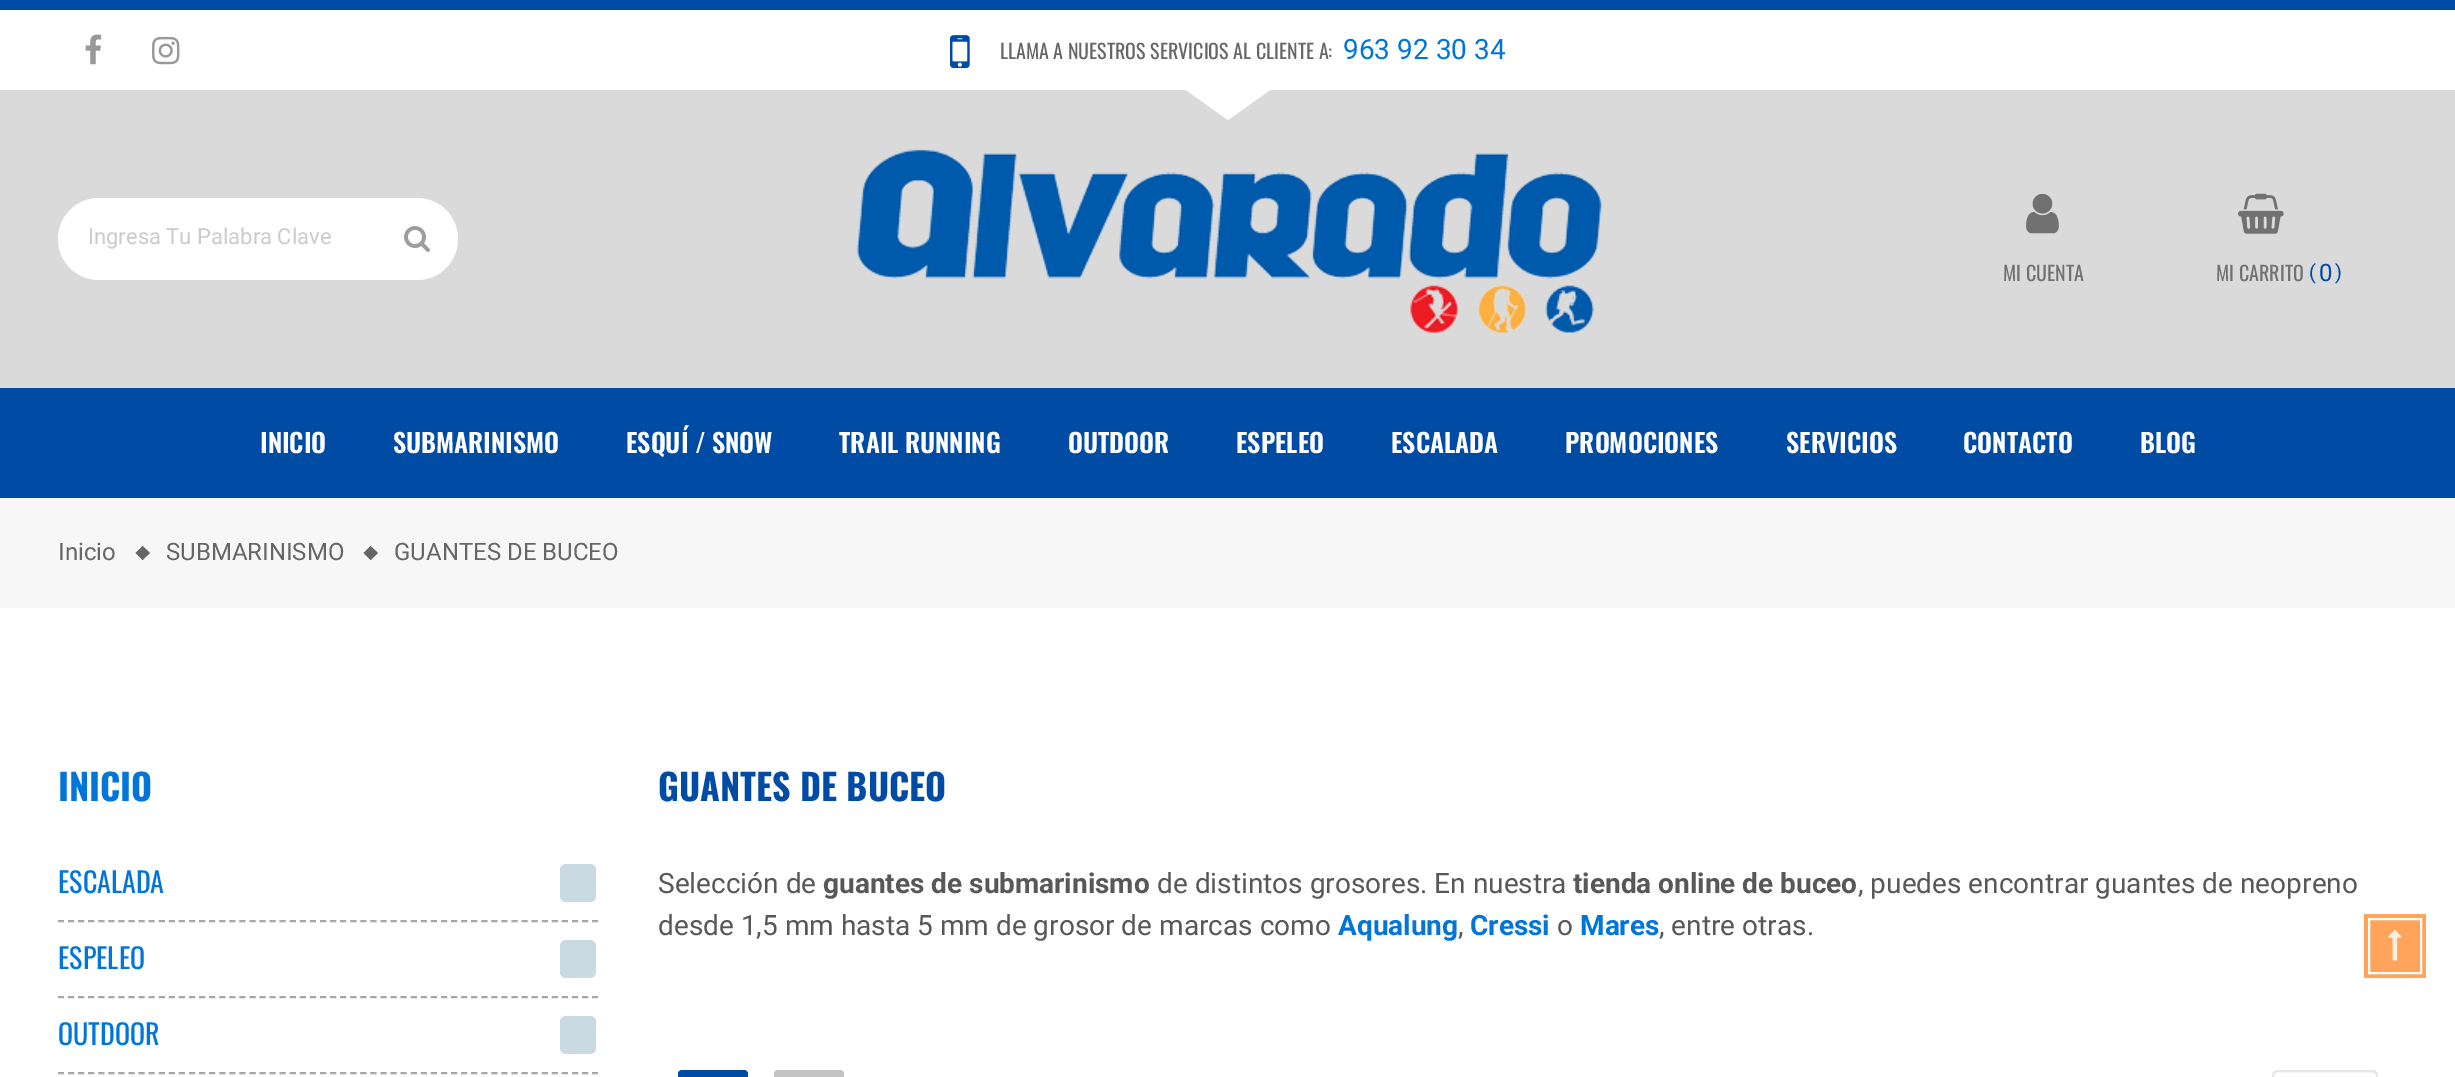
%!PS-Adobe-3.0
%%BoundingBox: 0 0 2455 1077
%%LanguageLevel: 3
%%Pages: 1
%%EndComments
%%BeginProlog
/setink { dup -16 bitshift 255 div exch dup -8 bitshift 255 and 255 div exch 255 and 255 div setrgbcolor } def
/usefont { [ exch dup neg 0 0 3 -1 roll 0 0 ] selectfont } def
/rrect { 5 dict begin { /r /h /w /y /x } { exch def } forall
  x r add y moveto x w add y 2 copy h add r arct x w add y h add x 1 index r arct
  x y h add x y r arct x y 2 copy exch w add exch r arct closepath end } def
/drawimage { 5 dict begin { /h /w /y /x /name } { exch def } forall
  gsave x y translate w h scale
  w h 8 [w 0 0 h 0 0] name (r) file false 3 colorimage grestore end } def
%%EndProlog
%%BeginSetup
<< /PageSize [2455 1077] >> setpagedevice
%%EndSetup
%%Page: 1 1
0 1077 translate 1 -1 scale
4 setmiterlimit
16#FFFFFF setink
0 0 2455 1077 rectfill
16#004CA4 setink
0 0 2455 10 rectfill
(img1.raw) 85 34 17 31 drawimage
(img2.raw) 152 36 28 29 drawimage
(img3.raw) 950 35 20 33 drawimage
/Oswald-Regular 20 usefont
16#666666 setink
1000 59 moveto (LLAMA A NUESTROS SERVICIOS AL CLIENTE A:) show
/Roboto-Regular 28 usefont
16#0275D8 setink
1343 59 moveto (963 92 30 34) show
16#DADADA setink
0 90 2455 298 rectfill
16#FFFFFF setink
1186 90 moveto 1270 90 lineto 1228 120 lineto closepath fill
58 198 400 82 41 rrect fill
/Roboto-Regular 22 usefont
16#CCCBCB setink
88 244 moveto (Ingresa Tu Palabra Clave) show
(img4.raw) 404 226 26 26 drawimage
(img5.raw) 856 149 746 184 drawimage
(img6.raw) 2026 193 33 41 drawimage
/Oswald-Regular 20 usefont
16#717171 setink
2003 281 moveto (MI CUENTA) show
2216 281 moveto (MI CARRITO) show
(img7.raw) 2238 193 46 41 drawimage
/Roboto-Regular 20 usefont
16#004CA4 setink
2309 279 moveto (\() show
/Roboto-Regular 24 usefont
2319 281 moveto (0) show
/Roboto-Regular 20 usefont
2335 279 moveto (\)) show
0 388 2455 110 rectfill
/Oswald-SemiBold 26 usefont
16#FFFFFF setink
[
    [(INICIO) 260 453]
    [(SUBMARINISMO) 393 453]
    [(ESQUÍ / SNOW) 626 453]
    [(TRAIL RUNNING) 839 453]
    [(OUTDOOR) 1068 453]
    [(ESPELEO) 1236 453]
    [(ESCALADA) 1391 453]
    [(PROMOCIONES) 1565 453]
    [(SERVICIOS) 1786 453]
    [(CONTACTO) 1963 453]
    [(BLOG) 2140 453]
] { aload pop moveto show } forall
16#F7F7F7 setink
0 498 2455 110 rectfill
/Roboto-Regular 24 usefont
16#666666 setink
58 560 moveto (Inicio) show
142.5 546 moveto 150 553 lineto 142.5 560 lineto 135.5 553 lineto closepath fill
166 560 moveto (SUBMARINISMO) show
370.5 546 moveto 378 553 lineto 370.5 560 lineto 363.5 553 lineto closepath fill
394 560 moveto (GUANTES DE BUCEO) show
/Oswald-Bold 36 usefont
16#0275D8 setink
58 801 moveto (INICIO) show
16#A7A7A7 setink
2 setlinewidth
[6 4.08] 0 setdash
58 921 moveto 598 921 lineto stroke
/Oswald-Regular 28 usefont
16#0275D8 setink
58 893 moveto (ESCALADA) show
16#CADAE2 setink
560 864 36 38 6 rrect fill
16#A7A7A7 setink
58 997 moveto 598 997 lineto stroke
16#0275D8 setink
58 969 moveto (ESPELEO) show
16#CADAE2 setink
560 940 36 38 6 rrect fill
16#A7A7A7 setink
58 1073 moveto 598 1073 lineto stroke
16#0275D8 setink
58 1045 moveto (OUTDOOR) show
16#CADAE2 setink
560 1016 36 38 6 rrect fill
/Oswald-Bold 36 usefont
16#004CA4 setink
658 801 moveto (GUANTES DE BUCEO) show
/Roboto-Regular 28 usefont
16#585858 setink
658 893 moveto (Selección de) show
/Roboto-Bold 28 usefont
823 893 moveto (guantes de submarinismo) show
/Roboto-Regular 28 usefont
1157 893 moveto (de distintos grosores. En nuestra) show
/Roboto-Bold 28 usefont
1573 893 moveto (tienda online de buceo) show
/Roboto-Regular 28 usefont
1858 893 moveto (, puedes encontrar guantes de neopreno) show
658 935 moveto (desde 1,5 mm hasta 5 mm de grosor de marcas como) show
/Roboto-Bold 28 usefont
16#0275D8 setink
1338 935 moveto (Aqualung) show
/Roboto-Regular 28 usefont
16#585858 setink
1458 935 moveto (,) show
/Roboto-Bold 28 usefont
16#0275D8 setink
1470 935 moveto (Cressi) show
/Roboto-Regular 28 usefont
16#585858 setink
1557 935 moveto (o) show
/Roboto-Bold 28 usefont
16#0275D8 setink
1580 935 moveto (Mares) show
/Roboto-Regular 28 usefont
16#585858 setink
1659 935 moveto (, entre otras.) show
16#004CA4 setink
678 1070 70 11 4 rrect fill
16#C4C4C4 setink
774 1070 70 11 4 rrect fill
16#E6E6E6 setink
[] 0 setdash
2273 1071 104 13 5 rrect stroke
16#FFA45A setink
2364 914 62 64 rectfill
(img8.raw) 2388 929 14 32 drawimage
16#FFFFFF setink
2369 919 52 54 rectstroke
showpage
%%EOF
